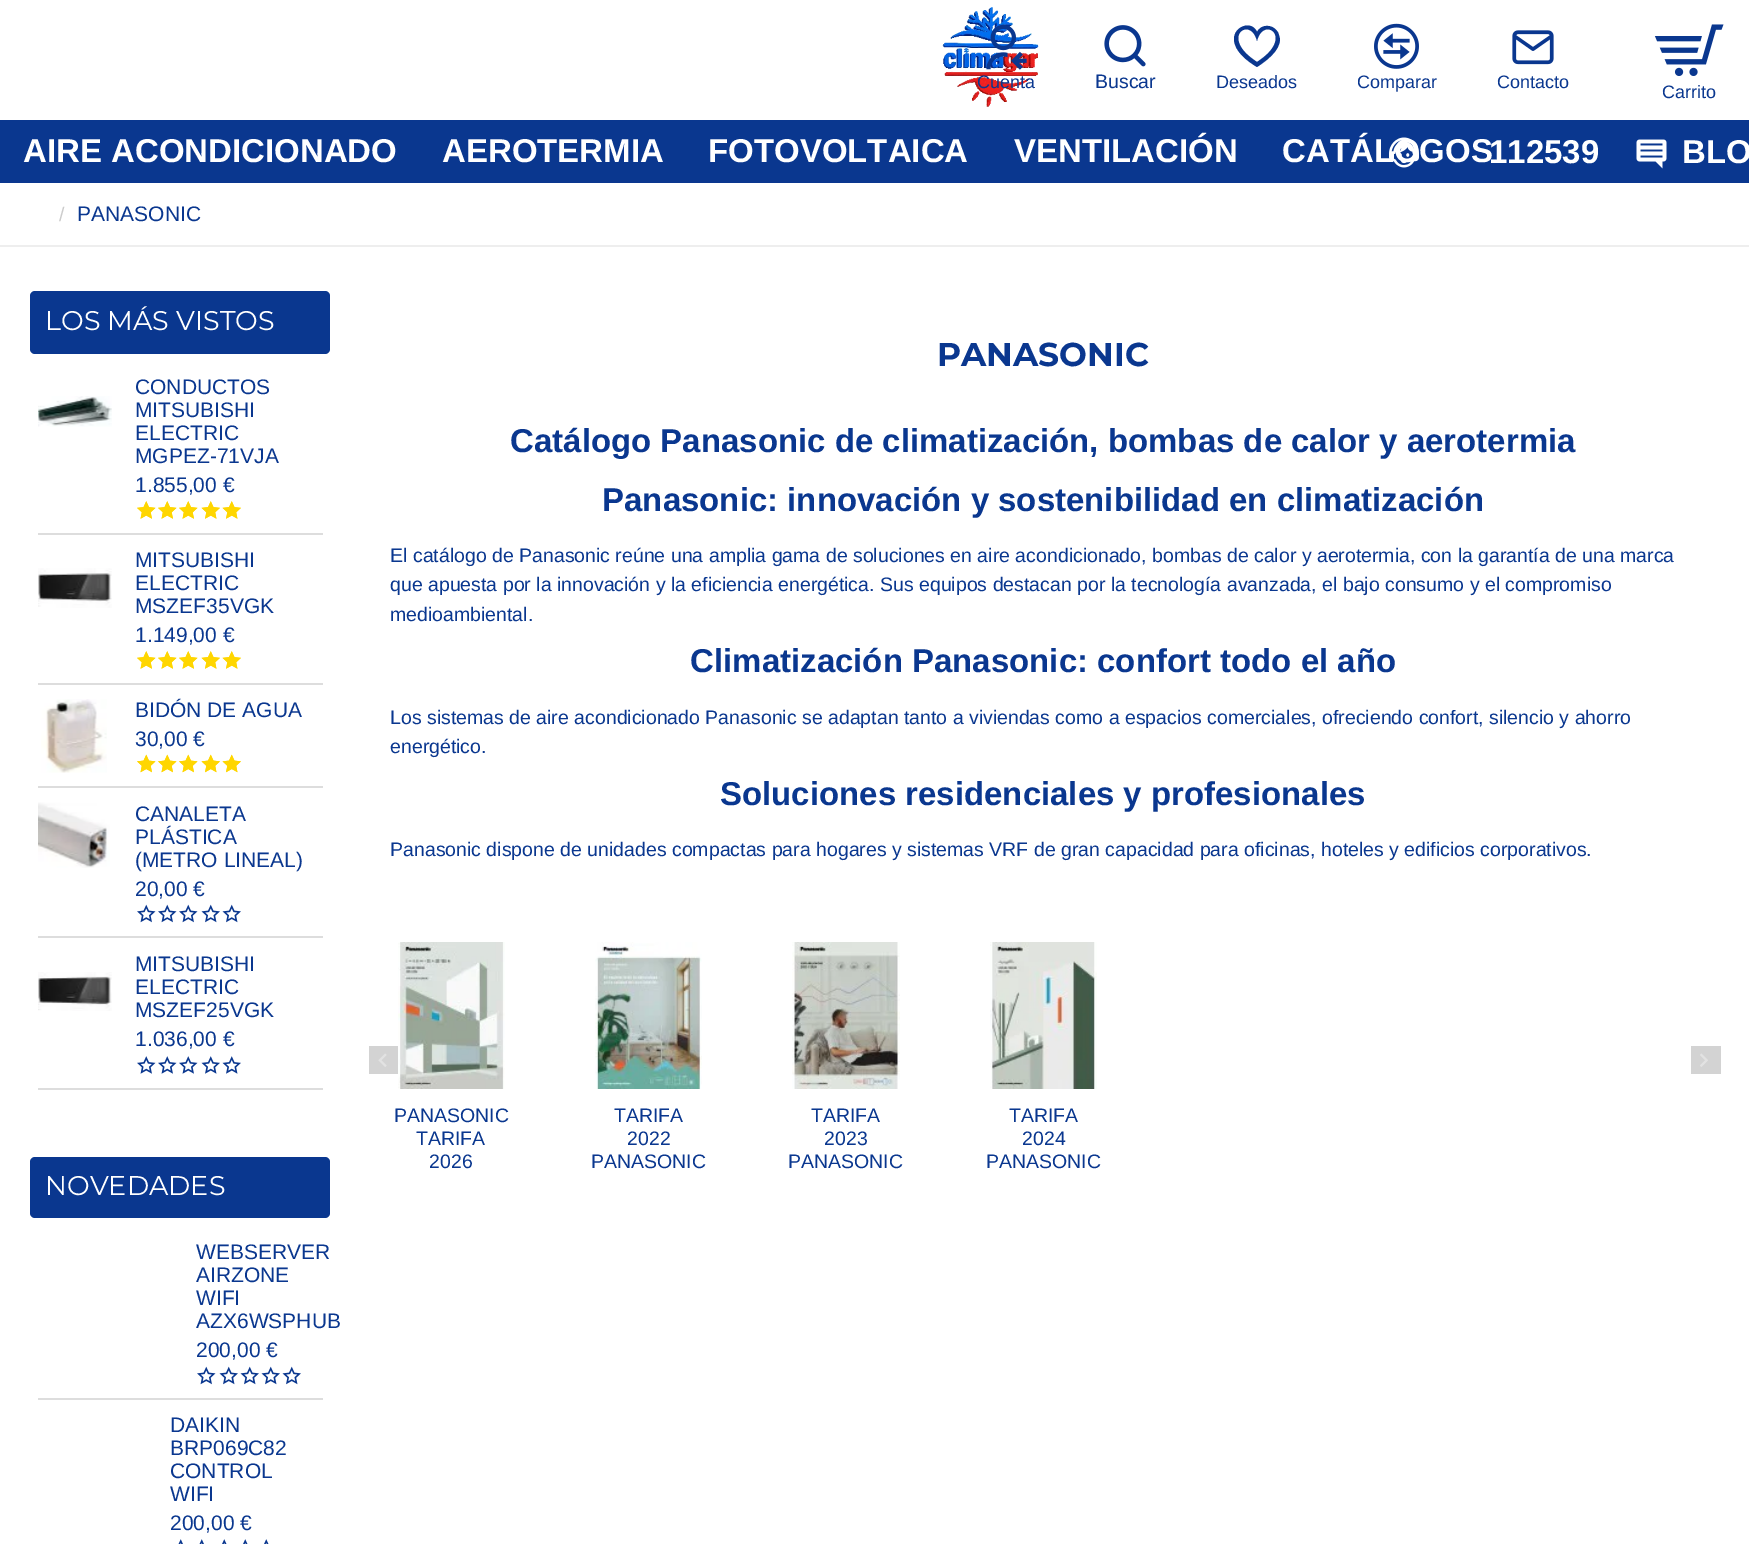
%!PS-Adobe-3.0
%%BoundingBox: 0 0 1749 1544
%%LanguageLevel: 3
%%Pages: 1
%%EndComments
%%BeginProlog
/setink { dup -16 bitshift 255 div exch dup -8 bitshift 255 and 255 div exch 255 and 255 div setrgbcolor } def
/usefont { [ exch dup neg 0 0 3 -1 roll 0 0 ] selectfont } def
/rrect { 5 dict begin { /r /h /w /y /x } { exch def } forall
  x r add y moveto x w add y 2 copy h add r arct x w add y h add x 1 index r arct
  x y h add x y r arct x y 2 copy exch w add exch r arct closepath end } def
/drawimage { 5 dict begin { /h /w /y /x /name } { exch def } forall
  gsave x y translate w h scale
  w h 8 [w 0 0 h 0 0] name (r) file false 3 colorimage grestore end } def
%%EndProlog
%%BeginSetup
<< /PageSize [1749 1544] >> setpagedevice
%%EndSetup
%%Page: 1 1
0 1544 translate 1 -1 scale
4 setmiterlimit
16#FFFFFF setink
0 0 1749 1544 rectfill
(img1.raw) 942 7 97 100 drawimage
(img2.raw) 986 24 41 46 drawimage
/LiberationSans-Regular 18 usefont
16#0A378F setink
977 88 moveto (Cuenta) show
(img3.raw) 1104 25 42 42 drawimage
/LiberationSans-Regular 19.5 usefont
1095 88 moveto (Buscar) show
1257 41 moveto 1263 15 1296 37 1257 62 curveto 1218 37 1251 15 1257 41 curveto closepath 1234 39 moveto 1234 51 1247 61 1257 67 curveto 1266 61 1280 51 1280 39 curveto 1279 36 1279 33 1277 31 curveto 1272 24 1261 24 1257 32 curveto 1252 20 1234 26 1234 39 curveto closepath fill
/LiberationSans-Regular 18 usefont
1216 88 moveto (Deseados) show
(img4.raw) 1374 23 45 46 drawimage
gsave
1358 69 79 29 rectclip
1357 88 moveto (Comparar) show
grestore
(img5.raw) 1512 30 42 35 drawimage
1497 88 moveto (Contacto) show
(img6.raw) 1654 24 70 52 drawimage
1662 98 moveto (Carrito) show
0 120 1749 63 rectfill
/LiberationSans-Bold 33 usefont
16#FFFFFF setink
[
    [(AIRE ACONDICIONADO) 23 162]
    [(AEROTERMIA) 442 162]
    [(FOTOVOLTAICA) 708 162]
    [(VENTILACIÓN) 1014 162]
    [(CATÁLOGOS) 1282 162]
] { aload pop moveto show } forall
(img7.raw) 1389 137 30 31 drawimage
1489 163 moveto (112539) show
(img8.raw) 1636 139 31 30 drawimage
1682 163 moveto (BLO) show
16#EEEEEE setink
0 245 1749 2 rectfill
/LiberationSans-Regular 19.5 usefont
16#CCCCCC setink
59 221 moveto (/) show
/LiberationSans-Regular 21 usefont
16#0A378F setink
77 221 moveto (PANASONIC) show
30 291 300 63 5 rrect fill
/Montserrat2-Thin 27 usefont
16#FFFFFF setink
45 330 moveto (LOS MÁS VISTOS) show
16#DDDDDD setink
38 533 285 2 rectfill
(img9.raw) 38 396 74 31 drawimage
/LiberationSans-Regular 21 usefont
16#0A378F setink
[
    [(CONDUCTOS) 135 394]
    [(MITSUBISHI) 135 417]
    [(ELECTRIC) 135 440]
    [(MGPEZ-71VJA) 135 463]
    [(1.855,00 €) 135 492]
] { aload pop moveto show } forall
(img10.raw) 137 501 19 18 drawimage
(img11.raw) 137 501 19 18 drawimage
(img10.raw) 158 501 19 18 drawimage
(img11.raw) 158 501 19 18 drawimage
(img10.raw) 179 501 19 18 drawimage
(img11.raw) 179 501 19 18 drawimage
(img12.raw) 201 501 19 18 drawimage
(img13.raw) 201 501 19 18 drawimage
(img12.raw) 222 501 19 18 drawimage
(img13.raw) 222 501 19 18 drawimage
16#DDDDDD setink
38 683 285 2 rectfill
(img14.raw) 38 568 74 40 drawimage
16#0A378F setink
[
    [(MITSUBISHI) 135 567]
    [(ELECTRIC) 135 590]
    [(MSZEF35VGK) 135 613]
    [(1.149,00 €) 135 642]
] { aload pop moveto show } forall
(img10.raw) 137 651 19 18 drawimage
(img11.raw) 137 651 19 18 drawimage
(img10.raw) 158 651 19 18 drawimage
(img11.raw) 158 651 19 18 drawimage
(img10.raw) 179 651 19 18 drawimage
(img11.raw) 179 651 19 18 drawimage
(img12.raw) 201 651 19 18 drawimage
(img13.raw) 201 651 19 18 drawimage
(img12.raw) 222 651 19 18 drawimage
(img13.raw) 222 651 19 18 drawimage
16#DDDDDD setink
38 786 285 2 rectfill
(img15.raw) 41 699 66 74 drawimage
16#0A378F setink
135 717 moveto (BIDÓN DE AGUA) show
135 746 moveto (30,00 €) show
(img16.raw) 137 754 19 19 drawimage
(img17.raw) 137 754 19 19 drawimage
(img16.raw) 158 754 19 19 drawimage
(img17.raw) 158 754 19 19 drawimage
(img16.raw) 179 754 19 19 drawimage
(img17.raw) 179 754 19 19 drawimage
(img18.raw) 201 754 19 19 drawimage
(img19.raw) 201 754 19 19 drawimage
(img18.raw) 222 754 19 19 drawimage
(img19.raw) 222 754 19 19 drawimage
16#DDDDDD setink
38 936 285 2 rectfill
(img20.raw) 38 802 72 66 drawimage
16#0A378F setink
[
    [(CANALETA) 135 821]
    [(PLÁSTICA) 135 844]
    [(\(METRO LINEAL\)) 135 867]
    [(20,00 €) 135 896]
] { aload pop moveto show } forall
(img21.raw) 137 904 19 19 drawimage
(img21.raw) 158 904 19 19 drawimage
(img21.raw) 179 904 19 19 drawimage
(img22.raw) 201 904 19 19 drawimage
(img22.raw) 222 904 19 19 drawimage
16#DDDDDD setink
38 1088 285 2 rectfill
(img23.raw) 38 972 74 39 drawimage
16#0A378F setink
[
    [(MITSUBISHI) 135 971]
    [(ELECTRIC) 135 994]
    [(MSZEF25VGK) 135 1017]
    [(1.036,00 €) 135 1046]
] { aload pop moveto show } forall
(img24.raw) 137 1056 19 18 drawimage
(img24.raw) 158 1056 19 18 drawimage
(img24.raw) 179 1056 19 18 drawimage
(img25.raw) 201 1056 19 18 drawimage
(img25.raw) 222 1056 19 18 drawimage
30 1157 300 61 5 rrect fill
/Montserrat2-Thin 27 usefont
16#FFFFFF setink
45 1195 moveto (NOVEDADES) show
16#DDDDDD setink
38 1398 285 2 rectfill
/LiberationSans-Regular 21 usefont
16#0A378F setink
[
    [(WEBSERVER) 196 1259]
    [(AIRZONE) 196 1282]
    [(WIFI) 196 1305]
    [(AZX6WSPHUB) 196 1328]
    [(200,00 €) 196 1357]
] { aload pop moveto show } forall
(img21.raw) 197 1366 19 19 drawimage
(img22.raw) 219 1366 19 19 drawimage
(img22.raw) 240 1366 19 19 drawimage
(img22.raw) 261 1366 19 19 drawimage
(img22.raw) 282 1366 19 19 drawimage
[
    [(DAIKIN) 170 1432]
    [(BRP069C82) 170 1455]
    [(CONTROL) 170 1478]
    [(WIFI) 170 1501]
    [(200,00 €) 170 1530]
] { aload pop moveto show } forall
(img26.raw) 178 1539 5 5 drawimage
(img26.raw) 199 1539 5 5 drawimage
(img27.raw) 222 1539 5 5 drawimage
(img27.raw) 243 1539 5 5 drawimage
(img27.raw) 264 1539 5 5 drawimage
/Montserrat-Thin 33 usefont
937 366 moveto (PANASONIC) show
/LiberationSans-Bold 33 usefont
510 452 moveto (Catálogo Panasonic de climatización, bombas de calor y aerotermia) show
602 511 moveto (Panasonic: innovación y sostenibilidad en climatización) show
/LiberationSans-Regular 19.5 usefont
[
    [(El catálogo de Panasonic reúne una amplia gama de soluciones en aire acondicionado, bombas de calor y aerotermia, con la garantía de una marca) 390 562]
    [(que apuesta por la innovación y la eficiencia energética. Sus equipos destacan por la tecnología avanzada, el bajo consumo y el compromiso) 390 591]
    [(medioambiental.) 390 621]
] { aload pop moveto show } forall
/LiberationSans-Bold 33 usefont
690 672 moveto (Climatización Panasonic: confort todo el año) show
/LiberationSans-Regular 19.5 usefont
390 724 moveto (Los sistemas de aire acondicionado Panasonic se adaptan tanto a viviendas como a espacios comerciales, ofreciendo confort, silencio y ahorro) show
390 753 moveto (energético.) show
/LiberationSans-Bold 33 usefont
720 805 moveto (Soluciones residenciales y profesionales) show
/LiberationSans-Regular 19.5 usefont
390 856 moveto (Panasonic dispone de unidades compactas para hogares y sistemas VRF de gran capacidad para oficinas, hoteles y edificios corporativos.) show
16#D3D3D3 setink
369 1046 29 28 rectfill
(img28.raw) 378 1053 9 14 drawimage
1691 1046 30 28 rectfill
(img29.raw) 1700 1053 8 14 drawimage
(img30.raw) 398 942 107 147 drawimage
16#0A378F setink
[
    [(PANASONIC) 394 1122]
    [(TARIFA) 416 1145]
    [(2026) 429 1168]
] { aload pop moveto show } forall
(img31.raw) 595 942 107 147 drawimage
[
    [(TARIFA) 614 1122]
    [(2022) 627 1145]
    [(PANASONIC) 591 1168]
] { aload pop moveto show } forall
(img32.raw) 792 942 108 147 drawimage
[
    [(TARIFA) 811 1122]
    [(2023) 824 1145]
    [(PANASONIC) 788 1168]
] { aload pop moveto show } forall
(img33.raw) 990 942 107 147 drawimage
[
    [(TARIFA) 1009 1122]
    [(2024) 1022 1145]
    [(PANASONIC) 986 1168]
] { aload pop moveto show } forall
showpage
%%EOF
